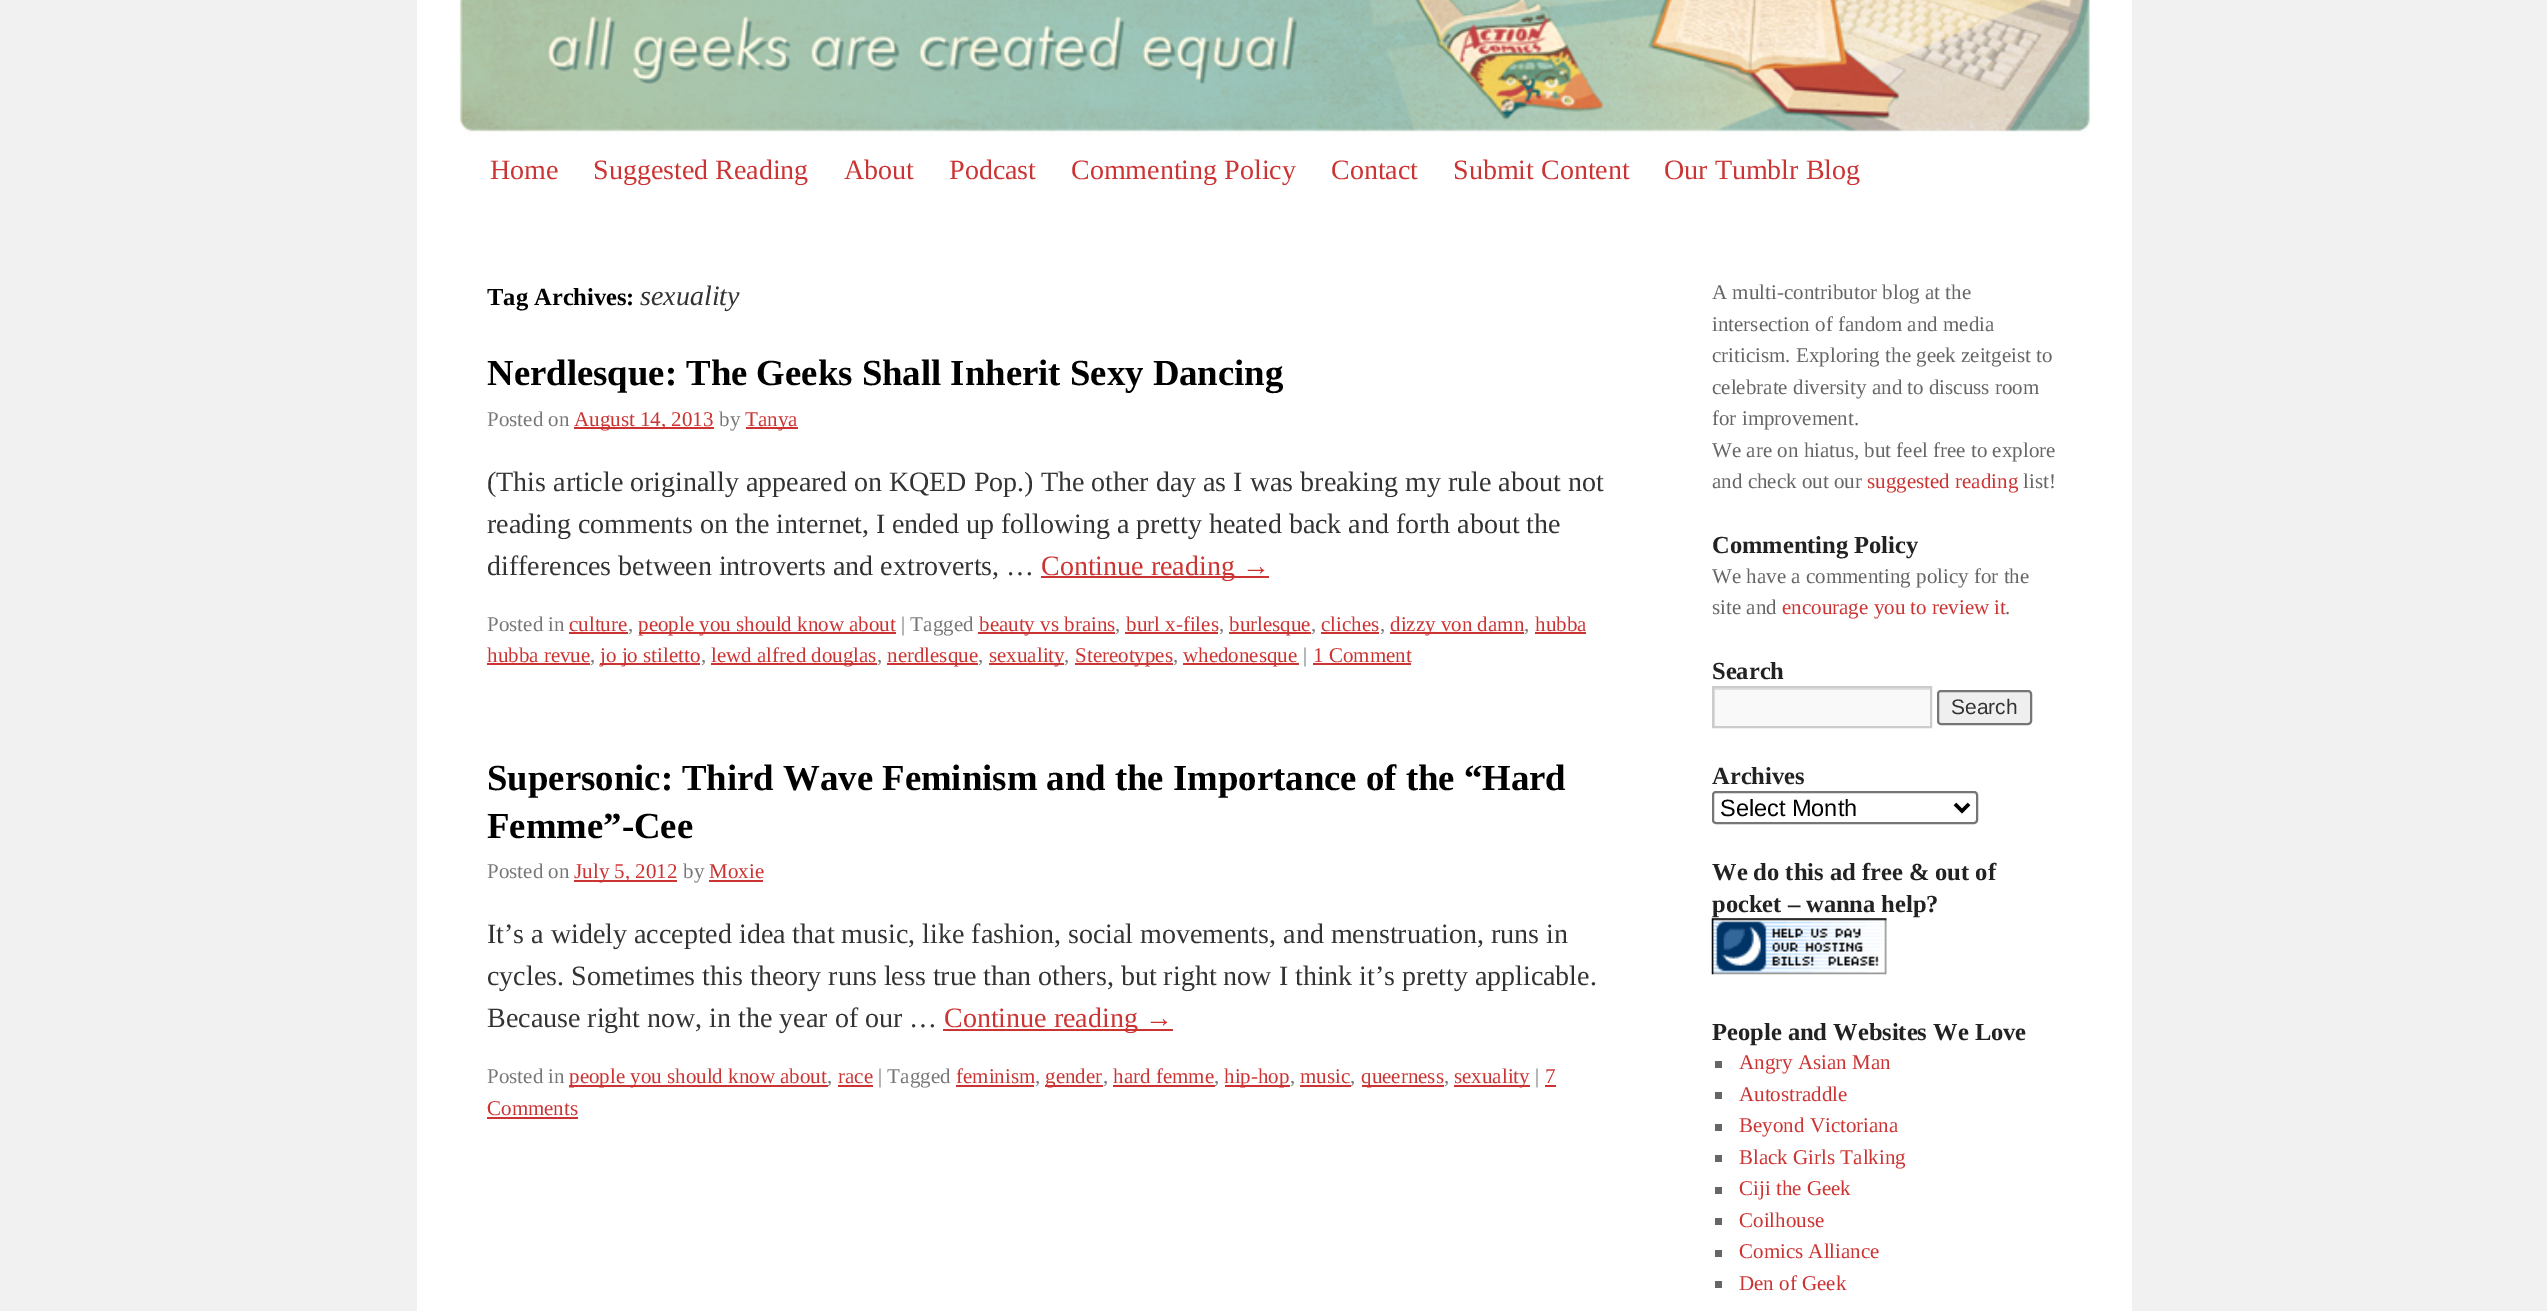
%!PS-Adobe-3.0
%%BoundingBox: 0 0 2547 1311
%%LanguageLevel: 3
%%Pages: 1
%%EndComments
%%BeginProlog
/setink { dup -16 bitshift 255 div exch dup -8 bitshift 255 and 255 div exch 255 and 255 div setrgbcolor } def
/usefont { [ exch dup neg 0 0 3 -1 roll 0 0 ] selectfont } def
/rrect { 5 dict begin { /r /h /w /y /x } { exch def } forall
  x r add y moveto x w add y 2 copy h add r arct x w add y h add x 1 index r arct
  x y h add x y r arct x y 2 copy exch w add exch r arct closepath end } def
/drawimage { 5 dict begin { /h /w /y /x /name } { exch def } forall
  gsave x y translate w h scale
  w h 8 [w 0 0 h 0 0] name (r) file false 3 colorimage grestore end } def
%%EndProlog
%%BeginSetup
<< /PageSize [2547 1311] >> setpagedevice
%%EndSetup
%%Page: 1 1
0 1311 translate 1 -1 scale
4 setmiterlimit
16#F1F1F1 setink
0 0 2547 1311 rectfill
16#FFFFFF setink
417 0 1715 1311 rectfill
(img1.raw) 459 0 1631 136 drawimage
/LiberationSerif-Regular 28 usefont
16#CC3333 setink
[
    [(Home) 490 179]
    [(Suggested Reading) 593 179]
    [(About) 844 179]
    [(Podcast) 949 179]
    [(Commenting Policy) 1071 179]
    [(Contact) 1331 179]
    [(Submit Content) 1453 179]
    [(Our Tumblr Blog) 1664 179]
] { aload pop moveto show } forall
/LiberationSerif-Bold 24.5 usefont
16#000000 setink
487 305 moveto (Tag Archives:) show
/LiberationSerif-Italic 28 usefont
16#333333 setink
640 305 moveto (sexuality) show
/LiberationSerif-Bold 36.75 usefont
16#000000 setink
487 385 moveto (Nerdlesque: The Geeks Shall Inherit Sexy Dancing) show
/LiberationSerif-Regular 21 usefont
16#777777 setink
487 426 moveto (Posted on) show
16#CC3333 setink
574 427 140 2 rectfill
574 426 moveto (August 14, 2013) show
16#777777 setink
719 426 moveto (by) show
16#CC3333 setink
746 427 52 2 rectfill
745 426 moveto (Tanya) show
/LiberationSerif-Regular 28 usefont
16#333333 setink
[
    [(\(This article originally appeared on KQED Pop.\) The other day as I was breaking my rule about not) 487 491]
    [(reading comments on the internet, I ended up following a pretty heated back and forth about the) 487 533]
    [(differences between introverts and extroverts, …) 487 575]
] { aload pop moveto show } forall
16#CC3333 setink
1041 576 228 2 rectfill
1041 575 moveto (Continue reading →) show
/LiberationSerif-Regular 21 usefont
16#777777 setink
487 631 moveto (Posted in) show
16#CC3333 setink
569 631 moveto (culture) show
16#777777 setink
628 631 moveto (,) show
16#CC3333 setink
569 632 59 2 rectfill
639 632 257 2 rectfill
638 631 moveto (people you should know about) show
16#777777 setink
901 631 moveto (| Tagged) show
16#CC3333 setink
978 632 137 2 rectfill
979 631 moveto (beauty vs brains) show
16#777777 setink
1115 631 moveto (,) show
16#CC3333 setink
1126 631 moveto (burl x-files) show
16#777777 setink
1219 631 moveto (,) show
16#CC3333 setink
1125 632 93 2 rectfill
1229 632 82 2 rectfill
1229 631 moveto (burlesque) show
16#777777 setink
1311 631 moveto (,) show
16#CC3333 setink
1321 631 moveto (cliches) show
16#777777 setink
1380 631 moveto (,) show
16#CC3333 setink
1321 632 58 2 rectfill
1390 632 134 2 rectfill
1390 631 moveto (dizzy von damn) show
16#777777 setink
1524 631 moveto (,) show
16#CC3333 setink
1535 632 51 2 rectfill
1535 631 moveto (hubba) show
487 662 moveto (hubba revue) show
16#777777 setink
590 662 moveto (,) show
16#CC3333 setink
487 663 103 2 rectfill
600 663 100 2 rectfill
600 662 moveto (jo jo stiletto) show
16#777777 setink
701 662 moveto (,) show
16#CC3333 setink
711 663 166 2 rectfill
711 662 moveto (lewd alfred douglas) show
16#777777 setink
877 662 moveto (,) show
16#CC3333 setink
887 663 91 2 rectfill
887 662 moveto (nerdlesque) show
16#777777 setink
978 662 moveto (,) show
16#CC3333 setink
989 663 75 2 rectfill
989 662 moveto (sexuality) show
16#777777 setink
1064 662 moveto (,) show
16#CC3333 setink
1075 663 98 2 rectfill
1075 662 moveto (Stereotypes) show
16#777777 setink
1173 662 moveto (,) show
16#CC3333 setink
1183 663 116 2 rectfill
1183 662 moveto (whedonesque) show
16#777777 setink
1303 662 moveto (|) show
16#CC3333 setink
1313 662 moveto (1 Comment) show
1313 663 98 2 rectfill
/LiberationSerif-Bold 36.75 usefont
16#000000 setink
487 790 moveto (Supersonic: Third Wave Feminism and the Importance of the “Hard) show
487 838 moveto (Femme”-Cee) show
/LiberationSerif-Regular 21 usefont
16#777777 setink
487 878 moveto (Posted on) show
16#CC3333 setink
574 880 103 2 rectfill
574 878 moveto (July 5, 2012) show
16#777777 setink
683 878 moveto (by) show
16#CC3333 setink
709 878 moveto (Moxie) show
709 880 54 2 rectfill
/LiberationSerif-Regular 28 usefont
16#333333 setink
[
    [(It’s a widely accepted idea that music, like fashion, social movements, and menstruation, runs in) 487 943]
    [(cycles. Sometimes this theory runs less true than others, but right now I think it’s pretty applicable.) 487 985]
    [(Because right now, in the year of our …) 487 1027]
] { aload pop moveto show } forall
16#CC3333 setink
943 1029 230 2 rectfill
944 1027 moveto (Continue reading →) show
/LiberationSerif-Regular 21 usefont
16#777777 setink
487 1083 moveto (Posted in) show
16#CC3333 setink
569 1085 259 2 rectfill
569 1083 moveto (people you should know about) show
16#777777 setink
827 1083 moveto (,) show
16#CC3333 setink
838 1085 35 2 rectfill
838 1083 moveto (race) show
16#777777 setink
878 1083 moveto (| Tagged) show
16#CC3333 setink
956 1083 moveto (feminism) show
16#777777 setink
1035 1083 moveto (,) show
16#CC3333 setink
956 1085 78 2 rectfill
1045 1085 58 2 rectfill
1045 1083 moveto (gender) show
16#777777 setink
1103 1083 moveto (,) show
16#CC3333 setink
1113 1083 moveto (hard femme) show
1113 1085 102 2 rectfill
16#777777 setink
1214 1083 moveto (,) show
16#CC3333 setink
1225 1085 65 2 rectfill
1224 1083 moveto (hip-hop) show
16#777777 setink
1290 1083 moveto (,) show
16#CC3333 setink
1300 1083 moveto (music) show
16#777777 setink
1350 1083 moveto (,) show
16#CC3333 setink
1300 1085 51 2 rectfill
1362 1085 82 2 rectfill
1361 1083 moveto (queerness) show
16#777777 setink
1444 1083 moveto (,) show
16#CC3333 setink
1454 1085 76 2 rectfill
1454 1083 moveto (sexuality) show
16#777777 setink
1535 1083 moveto (|) show
16#CC3333 setink
1545 1083 moveto (7) show
1545 1085 11 2 rectfill
487 1115 moveto (Comments) show
487 1117 91 2 rectfill
16#666666 setink
[
    [(A multi-contributor blog at the) 1712 299]
    [(intersection of fandom and media) 1712 331]
    [(criticism. Exploring the geek zeitgeist to) 1712 362]
    [(celebrate diversity and to discuss room) 1712 394]
    [(for improvement.) 1712 425]
    [(We are on hiatus, but feel free to explore) 1712 457]
    [(and check out our) 1712 488]
] { aload pop moveto show } forall
16#CC3333 setink
1867 488 moveto (suggested reading) show
16#666666 setink
2023 488 moveto (list!) show
/LiberationSerif-Bold 24.5 usefont
16#222222 setink
1712 553 moveto (Commenting Policy) show
/LiberationSerif-Regular 21 usefont
16#666666 setink
1712 583 moveto (We have a commenting policy for the) show
1712 614 moveto (site and) show
16#CC3333 setink
1782 614 moveto (encourage you to review it) show
16#666666 setink
2005 614 moveto (.) show
/LiberationSerif-Bold 24.5 usefont
16#222222 setink
1712 679 moveto (Search) show
16#F9F9F9 setink
1715 690 215 36 rectfill
gsave
1713 688 217 38 rectclip
16#E0E0E0 setink
1540 514 moveto 2104 514 lineto 2104 900 lineto 1540 900 lineto closepath 1715 690 moveto 1932 690 lineto 1932 728 lineto 1715 728 lineto closepath eofill
grestore
16#CCCCCC setink
2 setlinewidth
1713 687 218 40 rectstroke
16#EFEFEF setink
1938 691 93 33 3 rrect gsave fill grestore
16#767676 setink
stroke
/LiberationSans-Regular 21 usefont
16#333333 setink
1951 714 moveto (Search) show
/LiberationSerif-Bold 24.5 usefont
16#222222 setink
1712 784 moveto (Archives) show
16#767676 setink
1713 792 264 31 3 rrect stroke
16#000000 setink
3.5 setlinewidth
1955 804 moveto 1962 811 lineto 1969 804 lineto stroke
/LiberationSans-Regular 23.5 usefont
1720 816 moveto (Select Month) show
/LiberationSerif-Bold 24.5 usefont
16#222222 setink
1712 880 moveto (We do this ad free & out of) show
1712 912 moveto (pocket – wanna help?) show
(img2.raw) 1711 918 176 57 drawimage
1712 1040 moveto (People and Websites We Love) show
16#666666 setink
1715 1061 7 7 rectfill
/LiberationSerif-Regular 21 usefont
16#CC3333 setink
1739 1069 moveto (Angry Asian Man) show
16#666666 setink
1715 1092 7 7 rectfill
16#CC3333 setink
1739 1101 moveto (Autostraddle) show
16#666666 setink
1715 1124 7 7 rectfill
16#CC3333 setink
1739 1132 moveto (Beyond Victoriana) show
16#666666 setink
1715 1155 7 7 rectfill
16#CC3333 setink
1739 1164 moveto (Black Girls Talking) show
16#666666 setink
1715 1187 7 7 rectfill
16#CC3333 setink
1739 1195 moveto (Ciji the Geek) show
16#666666 setink
1715 1218 7 7 rectfill
16#CC3333 setink
1739 1227 moveto (Coilhouse) show
16#666666 setink
1715 1250 7 7 rectfill
16#CC3333 setink
1739 1258 moveto (Comics Alliance) show
16#666666 setink
1715 1281 7 7 rectfill
16#CC3333 setink
1739 1290 moveto (Den of Geek) show
showpage
%%EOF
